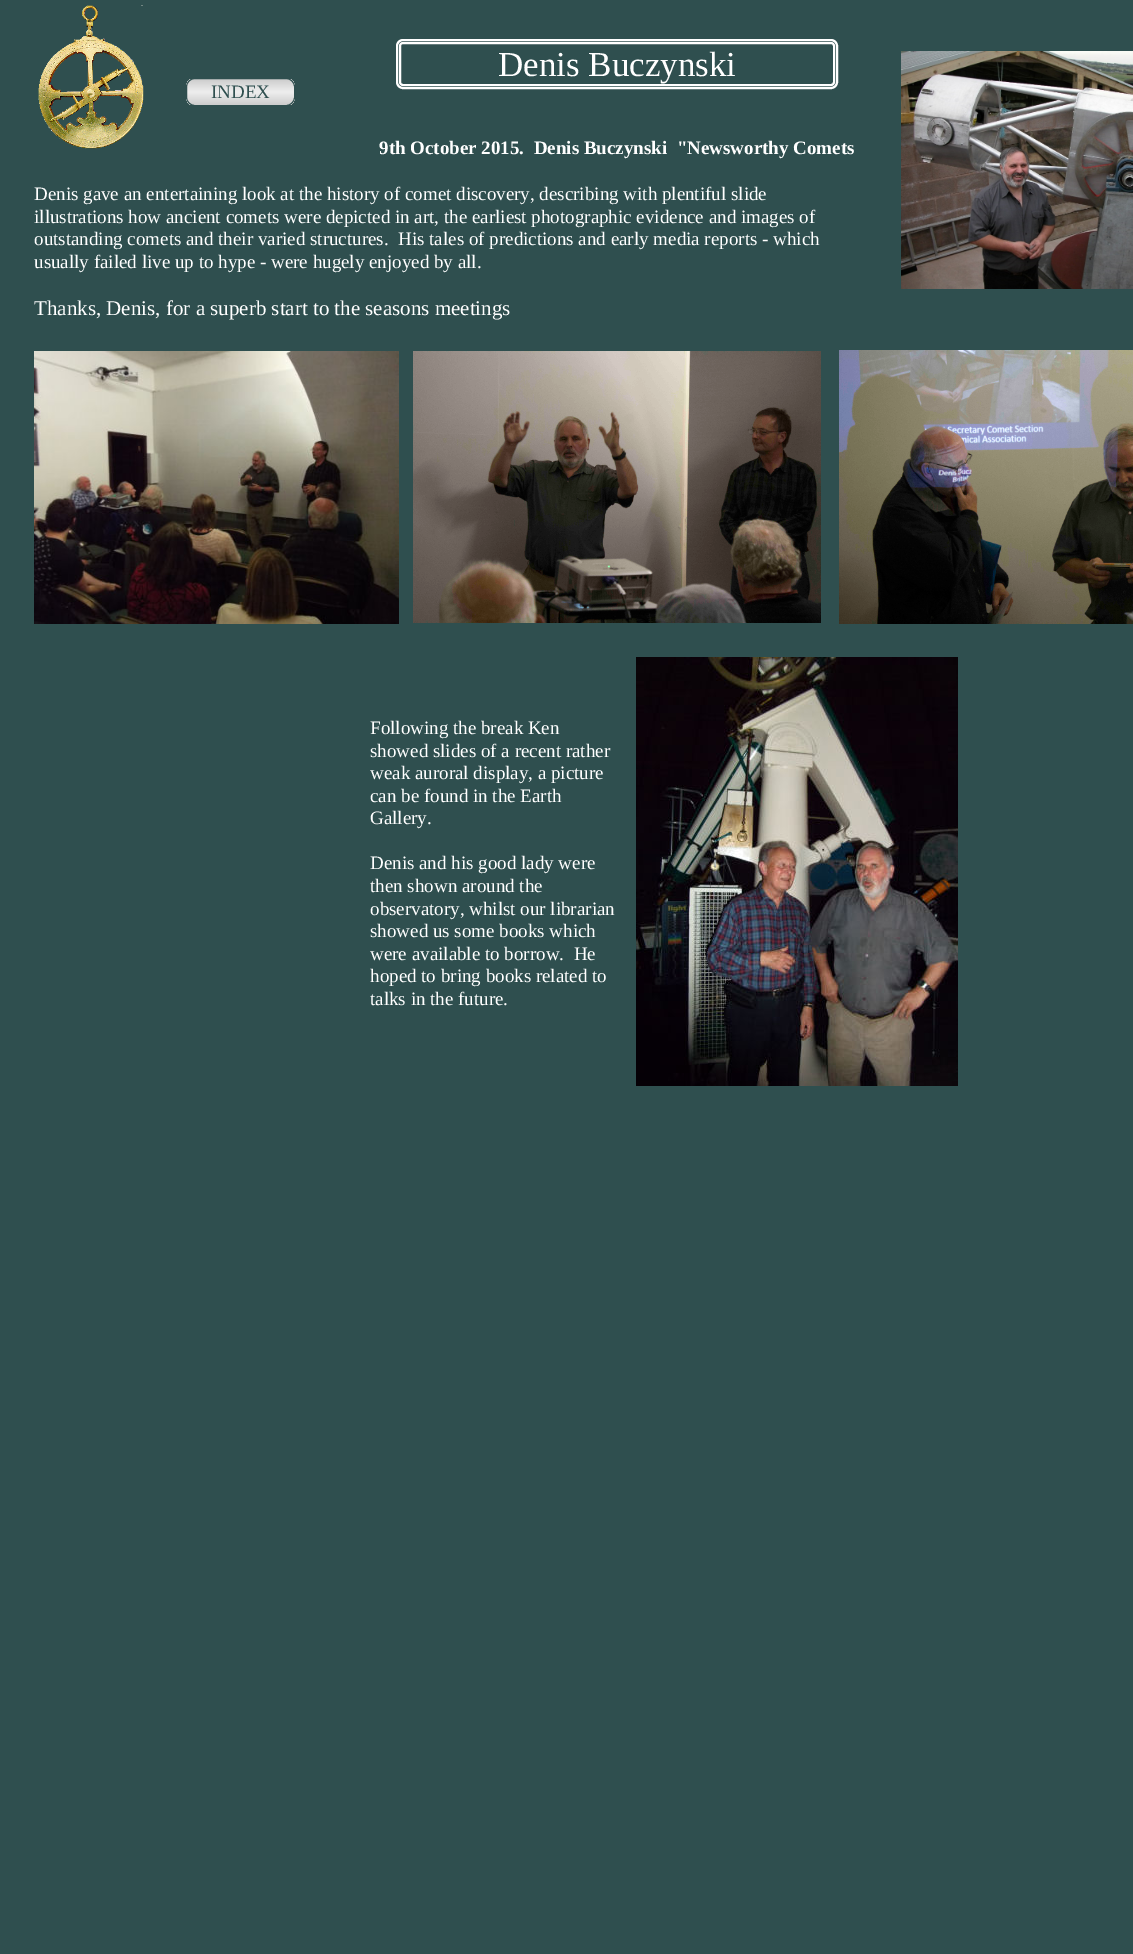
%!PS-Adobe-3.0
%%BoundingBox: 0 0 1133 1954
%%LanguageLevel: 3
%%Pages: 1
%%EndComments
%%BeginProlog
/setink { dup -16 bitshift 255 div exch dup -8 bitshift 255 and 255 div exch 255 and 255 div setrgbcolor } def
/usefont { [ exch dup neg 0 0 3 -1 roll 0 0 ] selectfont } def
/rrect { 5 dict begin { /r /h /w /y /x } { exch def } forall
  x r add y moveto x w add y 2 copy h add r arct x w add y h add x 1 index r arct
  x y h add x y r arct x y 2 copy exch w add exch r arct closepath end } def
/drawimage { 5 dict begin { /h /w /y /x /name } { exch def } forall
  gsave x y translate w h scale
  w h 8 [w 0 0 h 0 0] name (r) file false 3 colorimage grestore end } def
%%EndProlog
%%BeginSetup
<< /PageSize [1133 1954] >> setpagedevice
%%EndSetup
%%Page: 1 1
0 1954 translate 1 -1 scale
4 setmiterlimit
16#2F4F4F setink
0 0 1133 1954 rectfill
(img1.raw) 38 5 106 144 drawimage
gsave
186 78 109 28 9 rrect clip newpath
gsave 186 79 moveto 295 79 lineto 295 105 lineto 186 105 lineto closepath clip newpath
<< /ShadingType 2 /ColorSpace /DeviceRGB /Coords [241 105 241 79] /Extend [true true] /Function << /FunctionType 3 /Domain [0 1] /Functions [<< /FunctionType 2 /Domain [0 1] /C0 [0.8 0.8 0.8] /C1 [0.933 0.933 0.933] /N 1 >> << /FunctionType 2 /Domain [0 1] /C0 [0.933 0.933 0.933] /C1 [0.933 0.933 0.933] /N 1 >> << /FunctionType 2 /Domain [0 1] /C0 [0.933 0.933 0.933] /C1 [0.8 0.8 0.8] /N 1 >>] /Bounds [0.5 0.51] /Encode [0 1 0 1 0 1] >> >> shfill grestore
grestore
186.5 78.5 108 27 8.5 rrect stroke
/LiberationSerif-Regular 19 usefont
211 98 moveto (INDEX) show
16#FFFFFF setink
2 setlinewidth
397 40 440 48 6 rrect stroke
400 43 434 42 3 rrect stroke
/LiberationSerif-Regular 35 usefont
498 76 moveto (Denis Buczynski) show
(img2.raw) 901 51 232 238 drawimage
/LiberationSerif-Bold 19 usefont
379 154 moveto (9th October 2015.  Denis Buczynski  "Newsworthy Comets) show
/LiberationSerif-Regular 19 usefont
[
    [(Denis gave an entertaining look at the history of comet discovery, describing with plentiful slide) 34 200]
    [(illustrations how ancient comets were depicted in art, the earliest photographic evidence and images of) 34 223]
    [(outstanding comets and their varied structures.  His tales of predictions and early media reports - which) 34 245]
    [(usually failed live up to hype - were hugely enjoyed by all.) 34 268]
] { aload pop moveto show } forall
/LiberationSerif-Regular 21 usefont
34 315 moveto (Thanks, Denis, for a superb start to the seasons meetings) show
(img3.raw) 34 351 365 273 drawimage
(img4.raw) 413 351 408 272 drawimage
(img5.raw) 839 350 294 274 drawimage
/LiberationSerif-Regular 19 usefont
[
    [(Following the break Ken) 370 734]
    [(showed slides of a recent rather) 370 757]
    [(weak auroral display, a picture) 370 779]
    [(can be found in the Earth) 370 802]
    [(Gallery.) 370 824]
    [(Denis and his good lady were) 370 869]
    [(then shown around the) 370 892]
    [(observatory, whilst our librarian) 370 915]
    [(showed us some books which) 370 937]
    [(were available to borrow.  He) 370 960]
    [(hoped to bring books related to) 370 982]
    [(talks in the future.) 370 1005]
] { aload pop moveto show } forall
(img6.raw) 636 657 322 429 drawimage
showpage
%%EOF
